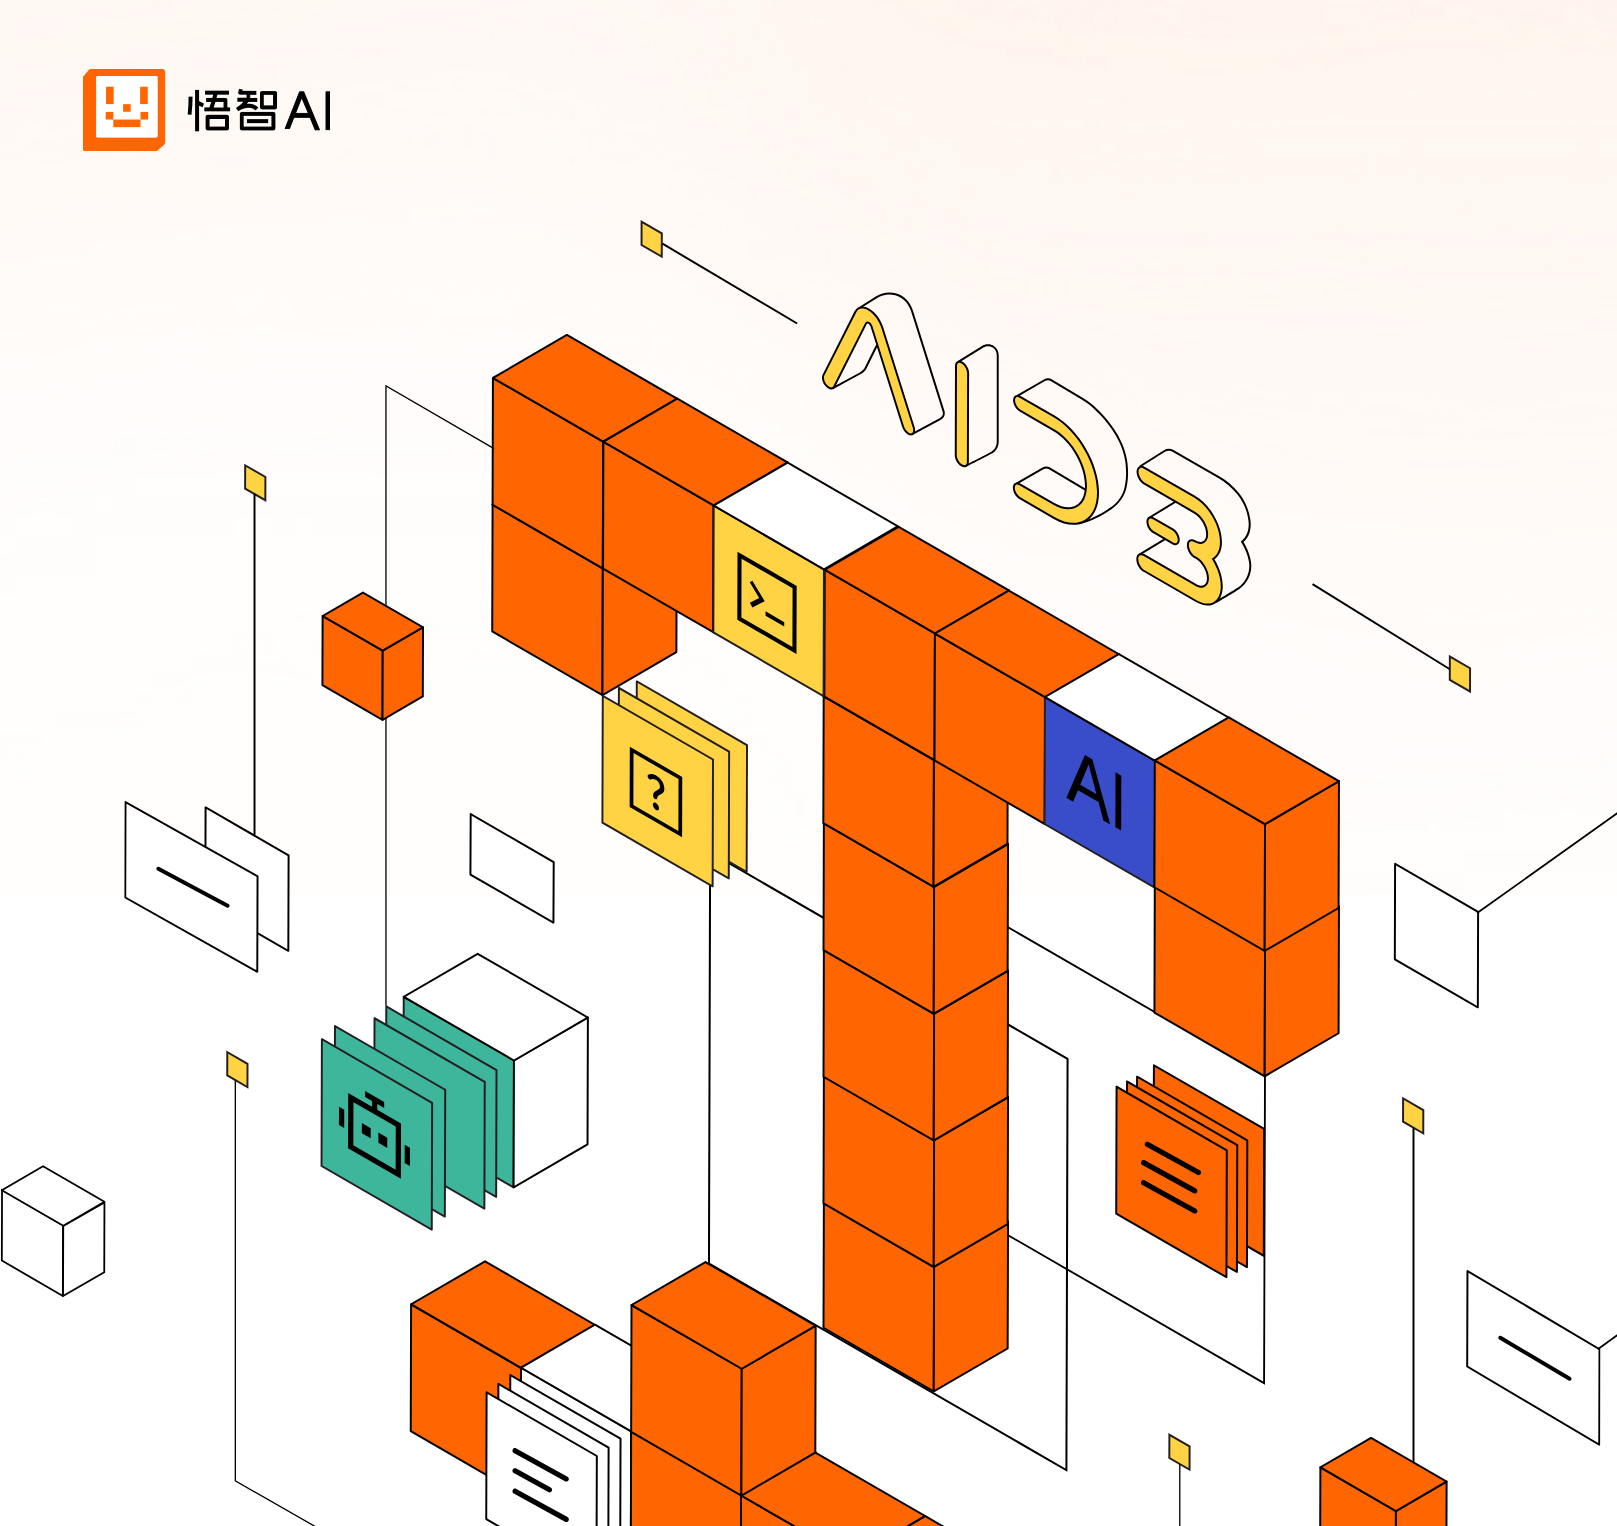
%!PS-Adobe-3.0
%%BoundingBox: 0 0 1617 1526
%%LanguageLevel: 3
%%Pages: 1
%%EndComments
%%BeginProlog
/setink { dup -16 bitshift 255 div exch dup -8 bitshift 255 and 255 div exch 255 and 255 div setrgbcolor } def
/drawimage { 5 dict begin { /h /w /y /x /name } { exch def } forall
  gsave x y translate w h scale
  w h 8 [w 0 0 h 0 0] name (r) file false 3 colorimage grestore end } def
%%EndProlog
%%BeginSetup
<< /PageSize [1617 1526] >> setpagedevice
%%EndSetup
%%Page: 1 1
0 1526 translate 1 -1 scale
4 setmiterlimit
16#FFFFFF setink
0 0 1617 1526 rectfill
(img1.raw) 0 0 1617 896 drawimage
(img2.raw) 83 69 247 82 drawimage
(img3.raw) 0 220 1617 1306 drawimage
showpage
%%EOF
